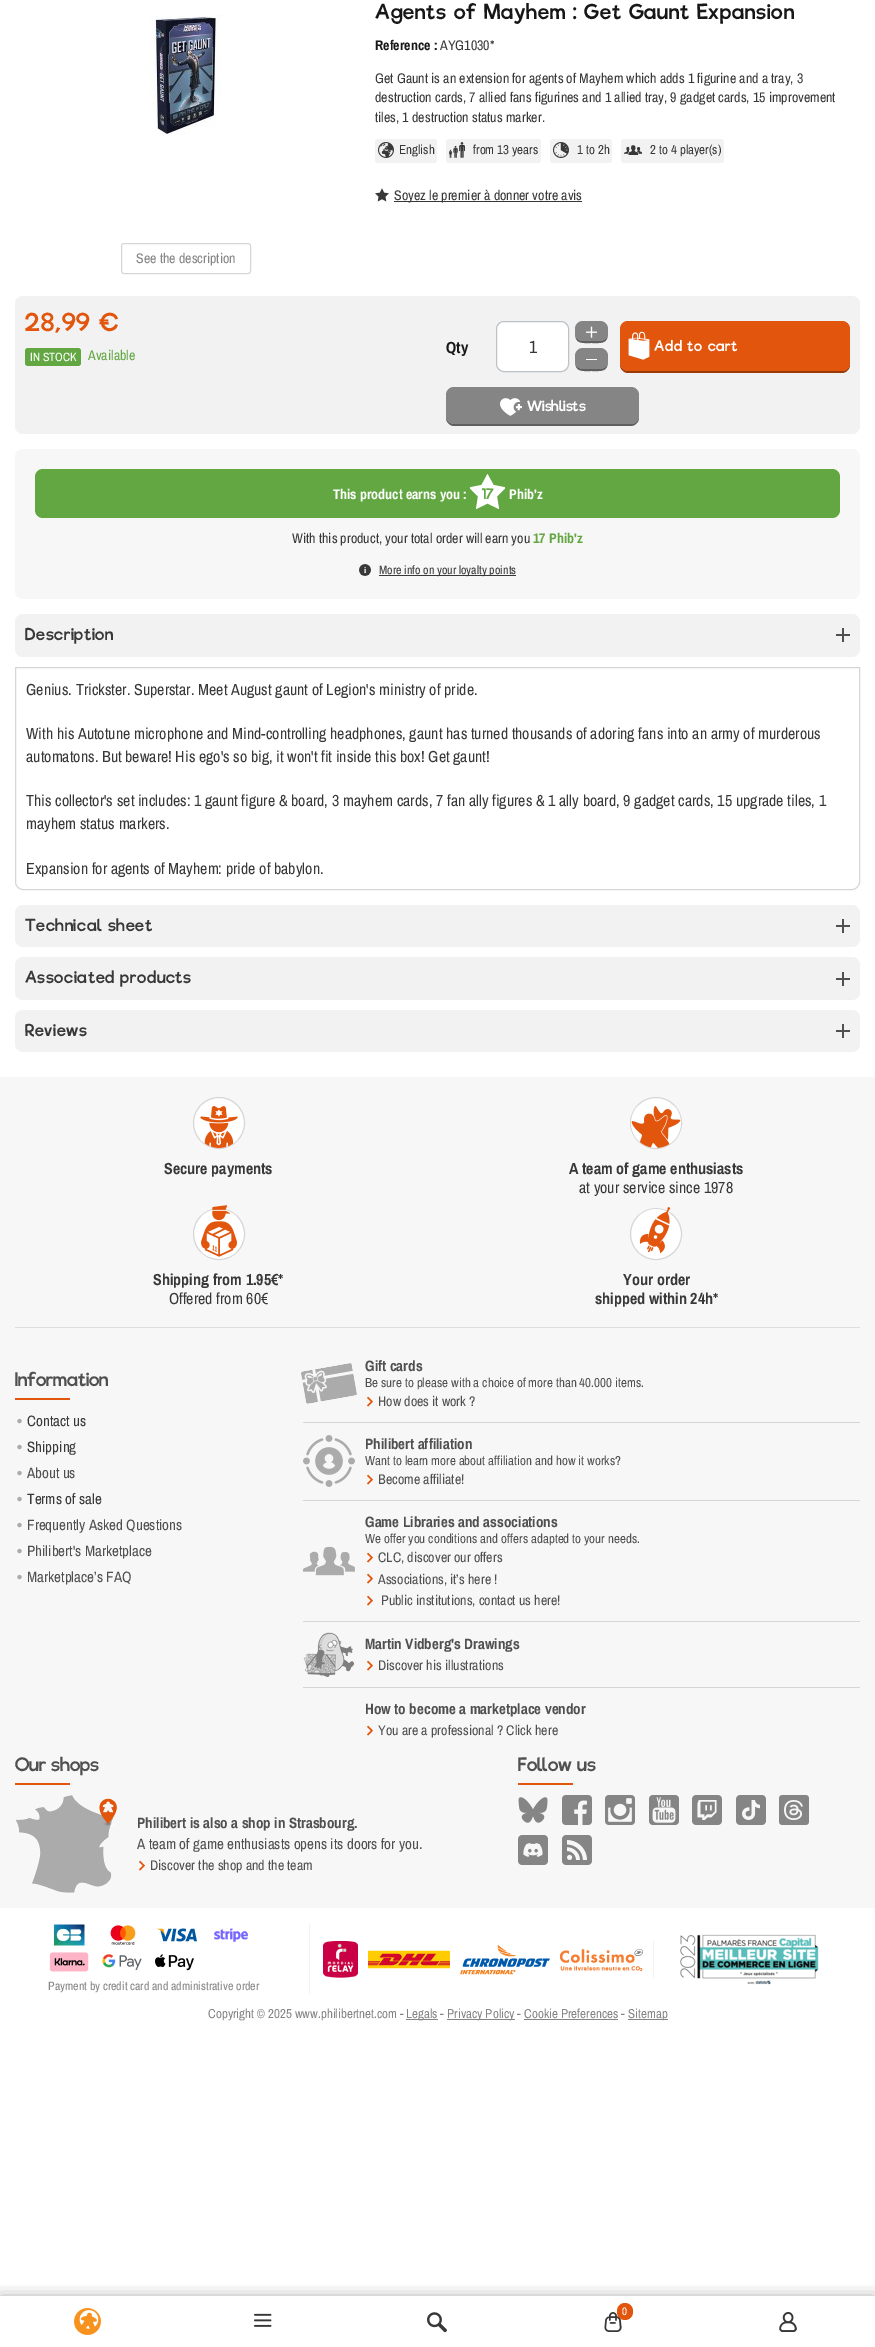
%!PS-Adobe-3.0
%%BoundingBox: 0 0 875 2347
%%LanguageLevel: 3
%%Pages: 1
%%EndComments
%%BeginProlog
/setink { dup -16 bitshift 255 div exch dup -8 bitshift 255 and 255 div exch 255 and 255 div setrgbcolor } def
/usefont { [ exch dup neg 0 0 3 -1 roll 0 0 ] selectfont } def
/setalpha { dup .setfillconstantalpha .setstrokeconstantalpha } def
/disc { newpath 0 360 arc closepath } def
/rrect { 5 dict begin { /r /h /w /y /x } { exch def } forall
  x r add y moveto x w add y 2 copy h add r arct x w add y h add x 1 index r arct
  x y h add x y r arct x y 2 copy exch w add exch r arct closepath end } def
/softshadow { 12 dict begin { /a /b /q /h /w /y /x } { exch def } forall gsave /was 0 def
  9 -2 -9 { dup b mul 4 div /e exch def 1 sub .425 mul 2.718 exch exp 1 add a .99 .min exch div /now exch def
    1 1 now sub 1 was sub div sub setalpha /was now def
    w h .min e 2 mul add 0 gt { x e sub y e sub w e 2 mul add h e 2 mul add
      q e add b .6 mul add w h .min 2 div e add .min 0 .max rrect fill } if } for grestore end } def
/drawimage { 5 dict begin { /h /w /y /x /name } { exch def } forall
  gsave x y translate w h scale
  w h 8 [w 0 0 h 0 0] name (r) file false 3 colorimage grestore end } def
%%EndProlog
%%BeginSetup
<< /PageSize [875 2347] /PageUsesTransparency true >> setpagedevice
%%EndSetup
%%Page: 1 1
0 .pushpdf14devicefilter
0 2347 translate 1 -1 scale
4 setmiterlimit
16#FFFFFF setink
0 0 875 2347 rectfill
/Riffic-Medium 20 usefont
16#171717 setink
375 19 moveto 1 0 (Agents of Mayhem : Get Gaunt Expansion) ashow
/ArchivoNarrow-Bold 14 usefont
375 50 moveto (Reference :) show
/ArchivoNarrow-Regular 14 usefont
16#383838 setink
[
    [(AYG1030*) 440 50]
    [(Get Gaunt is an extension for agents of Mayhem which adds 1 figurine and a tray, 3) 375 83]
    [(destruction cards, 7 allied fans figurines and 1 allied tray, 9 gadget cards, 15 improvement) 375 102]
    [(tiles, 1 destruction status marker.) 375 122]
] { aload pop moveto show } forall
16#F2F2F2 setink
375 139 62 24 3 rrect fill
(img1.raw) 378 142 16 16 drawimage
/ArchivoNarrow-Regular 13 usefont
16#383838 setink
399 154 moveto (English) show
16#F2F2F2 setink
446 139 95 24 3 rrect fill
(img2.raw) 449 142 16 16 drawimage
16#383838 setink
473 154 moveto (from 13 years) show
16#F2F2F2 setink
550 139 62 24 3 rrect fill
(img3.raw) 553 142 16 16 drawimage
16#383838 setink
577 154 moveto (1 to 2h) show
16#F2F2F2 setink
621 139 103 24 3 rrect fill
(img4.raw) 624 145 18 10 drawimage
16#383838 setink
650 154 moveto (2 to 4 player\(s\)) show
(img5.raw) 375 188 14 14 drawimage
394 201 188 1 rectfill
/ArchivoNarrow-Regular 14 usefont
394 200 moveto (Soyez le premier à donner votre avis) show
(img6.raw) 150 15 72 120 drawimage
16#D6D6D6 setink
121.5 243.5 129 30 2.5 rrect stroke
16#858585 setink
136 263 moveto (See the description) show
16#F2F2F2 setink
15 296 845 138 8 rrect fill
/Riffic-Medium 24 usefont
16#E1550D setink
25 331 moveto 1.25 0 (28,99 €) ashow
16#62A742 setink
25 348 56 18 3 rrect fill
/ArchivoNarrow-Regular 12 usefont
16#FFFFFF setink
30 361 moveto (IN STOCK) show
/ArchivoNarrow-Regular 14 usefont
16#62A742 setink
88 360 moveto (Available) show
/ArchivoNarrow-Bold 16 usefont
16#171717 setink
446 353 moveto (Qty) show
16#FFFFFF setink
496.5 321.5 72 50 7.5 rrect gsave fill grestore
16#BDC2C9 setink
stroke
/ArchivoNarrow-Regular 18 usefont
16#383838 setink
529 353 moveto (1) show
16#5F5F5F setink
575 333 moveto 575 344.5 582.5 343 591.5 343 curveto 600.5 343 608 344.5 608 333 curveto 608 342.5 598 341 591.5 341 curveto 585 341 575 342.5 575 333 curveto closepath fill
16#858585 setink
575 321 33 20 8 rrect fill
(img7.raw) 586 326 11 12 drawimage
16#5F5F5F setink
575 361 moveto 575 372.5 582.5 371 591.5 371 curveto 600.5 371 608 372.5 608 361 curveto 608 370.5 598 369 591.5 369 curveto 585 369 575 370.5 575 361 curveto closepath fill
16#858585 setink
575 348 33 21 8 rrect fill
16#FFFFFF setink
586 359 11 1 rectfill
16#993A09 setink
620 363 moveto 620 365 lineto 620 369 624 373 628 373 curveto 842 373 lineto 846 373 850 369 850 365 curveto 850 363 lineto 850 367 846 371 842 371 curveto 628 371 lineto 624 371 620 367 620 363 curveto closepath fill
16#E1550D setink
620 321 230 50 8 rrect fill
(img8.raw) 628 331 22 29 drawimage
/Riffic-Medium 14 usefont
16#FFFFFF setink
654 351 moveto 0.75 0 (Add to cart) ashow
16#5F5F5F setink
446 416 moveto 446 418 lineto 446 422 450 426 454 426 curveto 631 426 lineto 635 426 639 422 639 418 curveto 639 416 lineto 639 420 635 424 631 424 curveto 454 424 lineto 450 424 446 420 446 416 curveto closepath fill
16#858585 setink
446 387 193 37 8 rrect fill
(img9.raw) 500 398 22 18 drawimage
16#FFFFFF setink
527 411 moveto (Wishlists) show
16#F7F7F7 setink
15 449 845 150 8 rrect fill
16#62A742 setink
35 469 805 49 8 rrect fill
/ArchivoNarrow-Bold 14 usefont
16#FFFFFF setink
333 499 moveto (This product earns you :) show
gsave
470 474 35 35 rectclip
487.5 474 moveto 493.5 485 lineto 506 487.5 lineto 497 496.5 lineto 499 509 lineto 487.5 503.5 lineto 476 509 lineto 478 496.5 lineto 469 487.5 lineto 481.5 485 lineto closepath fill
grestore
/Riffic-Medium 14 usefont
16#62A742 setink
482 499 moveto (17) show
/ArchivoNarrow-Bold 14 usefont
16#FFFFFF setink
509 499 moveto (Phib'z) show
/ArchivoNarrow-Regular 14 usefont
16#383838 setink
292 543 moveto (With this product, your total order will earn you) show
/ArchivoNarrow-Bold 14 usefont
16#62A742 setink
533 543 moveto (17 Phib'z) show
(img10.raw) 359 564 12 12 drawimage
16#383838 setink
379 575 137 1 rectfill
/ArchivoNarrow-Regular 12 usefont
379 574 moveto (More info on your loyalty points) show
16#F2F2F2 setink
15 614 845 43 8 rrect fill
/Riffic-Medium 16 usefont
16#383838 setink
25 640 moveto 0.75 0 (Description) ashow
16#505050 setink
842 628 2 14 rectfill
836 634 14 2 rectfill
16#D6D6D6 setink
15.5 667.5 moveto 859.5 667.5 lineto 859.5 882 lineto 859.5 886 856 889.5 852 889.5 curveto 23 889.5 lineto 19 889.5 15.5 886 15.5 882 curveto closepath stroke
/ArchivoNarrow-Regular 16 usefont
16#383838 setink
[
    [(Genius. Trickster. Superstar. Meet August gaunt of Legion's ministry of pride.) 26 695]
    [(With his Autotune microphone and Mind-controlling headphones, gaunt has turned thousands of adoring fans into an army of murderous) 26 739]
    [(automatons. But beware! His ego's so big, it won't fit inside this box! Get gaunt!) 26 762]
    [(This collector's set includes: 1 gaunt figure & board, 3 mayhem cards, 7 fan ally figures & 1 ally board, 9 gadget cards, 15 upgrade tiles, 1) 26 806]
    [(mayhem status markers.) 26 829]
    [(Expansion for agents of Mayhem: pride of babylon.) 26 874]
] { aload pop moveto show } forall
16#F2F2F2 setink
15 905 845 42 8 rrect fill
/Riffic-Medium 16 usefont
16#383838 setink
25 931 moveto 0.75 0 (Technical sheet) ashow
16#505050 setink
842 919 2 14 rectfill
836 925 14 2 rectfill
16#F2F2F2 setink
15 957 845 43 8 rrect fill
16#383838 setink
25 983 moveto 0.75 0 (Associated products) ashow
16#505050 setink
842 972 2 14 rectfill
836 978 14 2 rectfill
16#F2F2F2 setink
15 1010 845 42 8 rrect fill
16#383838 setink
25 1036 moveto 0.75 0 (Reviews) ashow
[
    [842 1024 2 14 16#505050]
    [836 1030 14 2 16#505050]
    [0 1077 875 831 16#F7F7F7]
] { aload pop setink rectfill } forall
(img11.raw) 193 1097 52 52 drawimage
16#D6D6D6 setink
219 1123 25.5 disc stroke
(img12.raw) 200 1106 38 42 drawimage
/ArchivoNarrow-Bold 16 usefont
16#383838 setink
164 1174 moveto (Secure payments) show
(img11.raw) 630 1097 52 52 drawimage
16#D6D6D6 setink
656 1123 25.5 disc stroke
(img13.raw) 631 1106 50 42 drawimage
16#383838 setink
569 1174 moveto (A team of game enthusiasts) show
/ArchivoNarrow-Regular 16 usefont
579 1193 moveto (at your service since 1978) show
16#FFFFFF setink
219 1234 25.5 disc gsave fill grestore
16#D6D6D6 setink
stroke
(img14.raw) 201 1205 36 52 drawimage
/ArchivoNarrow-Bold 16 usefont
16#383838 setink
153 1285 moveto (Shipping from 1.95€*) show
/ArchivoNarrow-Regular 16 usefont
169 1304 moveto (Offered from 60€) show
16#FFFFFF setink
656 1234 25.5 disc gsave fill grestore
16#D6D6D6 setink
stroke
(img15.raw) 639 1207 32 47 drawimage
/ArchivoNarrow-Bold 16 usefont
16#383838 setink
623 1285 moveto (Your order) show
595 1304 moveto (shipped within 24h*) show
16#DEDDDD setink
15 1327 845 1 rectfill
/Riffic-Medium 18 usefont
16#505050 setink
15 1386 moveto (Information) show
16#E1550D setink
15 1398 55 2 rectfill
(img16.raw) 17 1418 5 6 drawimage
/ArchivoNarrow-Regular 15 usefont
16#383838 setink
27 1426 moveto (Contact us) show
(img16.raw) 17 1444 5 6 drawimage
27 1452 moveto (Shipping) show
(img16.raw) 17 1470 5 6 drawimage
16#505050 setink
27 1478 moveto (About us) show
(img16.raw) 17 1496 5 6 drawimage
16#383838 setink
27 1504 moveto (Terms of sale) show
(img16.raw) 17 1522 5 6 drawimage
16#505050 setink
27 1530 moveto (Frequently Asked Questions) show
(img16.raw) 17 1548 5 6 drawimage
27 1556 moveto (Philibert's Marketplace) show
(img16.raw) 17 1574 5 6 drawimage
27 1582 moveto (Marketplace’s FAQ) show
16#D6D6D6 setink
303 1422 557 1 rectfill
(img17.raw) 301 1363 56 41 drawimage
/ArchivoNarrow-Bold 15 usefont
16#505050 setink
365 1371 moveto (Gift cards) show
/ArchivoNarrow-Regular 13 usefont
365 1387 moveto (Be sure to please with a choice of more than 40.000 items.) show
(img18.raw) 367 1396 6 11 drawimage
/ArchivoNarrow-Regular 14 usefont
378 1406 moveto (How does it work ?) show
16#D6D6D6 setink
303 1500 557 1 rectfill
(img19.raw) 303 1435 52 52 drawimage
/ArchivoNarrow-Bold 15 usefont
16#505050 setink
365 1449 moveto (Philibert affiliation) show
/ArchivoNarrow-Regular 13 usefont
365 1465 moveto (Want to learn more about affiliation and how it works?) show
(img18.raw) 367 1474 6 11 drawimage
/ArchivoNarrow-Regular 14 usefont
378 1484 moveto (Become affiliate!) show
16#D6D6D6 setink
303 1621 557 1 rectfill
(img20.raw) 303 1546 52 30 drawimage
/ArchivoNarrow-Bold 15 usefont
16#505050 setink
365 1527 moveto (Game Libraries and associations) show
/ArchivoNarrow-Regular 13 usefont
365 1543 moveto (We offer you conditions and offers adapted to your needs.) show
(img18.raw) 367 1552 6 11 drawimage
/ArchivoNarrow-Regular 14 usefont
378 1562 moveto (CLC, discover our offers) show
(img18.raw) 367 1573 6 11 drawimage
378 1584 moveto (Associations, it’s here !) show
(img18.raw) 367 1595 6 11 drawimage
381 1605 moveto (Public institutions, contact us here!) show
16#D6D6D6 setink
303 1687 557 1 rectfill
(img21.raw) 303 1632 52 45 drawimage
/ArchivoNarrow-Bold 15 usefont
16#505050 setink
365 1649 moveto (Martin Vidberg's Drawings) show
(img18.raw) 367 1660 6 11 drawimage
/ArchivoNarrow-Regular 14 usefont
378 1670 moveto (Discover his illustrations) show
/ArchivoNarrow-Bold 15 usefont
365 1714 moveto (How to become a marketplace vendor) show
(img18.raw) 367 1725 6 11 drawimage
/ArchivoNarrow-Regular 14 usefont
378 1735 moveto (You are a professional ? Click here) show
/Riffic-Medium 18 usefont
15 1771 moveto (Our shops) show
16#E1550D setink
15 1783 55 2 rectfill
(img22.raw) 16 1795 101 98 drawimage
/ArchivoNarrow-Bold 15 usefont
16#505050 setink
137 1828 moveto (Philibert is also a shop in Strasbourg.) show
/ArchivoNarrow-Regular 15 usefont
137 1849 moveto (A team of game enthusiasts opens its doors for you.) show
(img18.raw) 139 1860 6 11 drawimage
/ArchivoNarrow-Regular 14 usefont
150 1870 moveto (Discover the shop and the team) show
/Riffic-Medium 18 usefont
518 1771 moveto (Follow us) show
16#E1550D setink
518 1783 55 2 rectfill
(img23.raw) 518 1797 30 26 drawimage
(img24.raw) 562 1795 30 30 drawimage
(img25.raw) 605 1795 30 30 drawimage
(img26.raw) 649 1795 30 30 drawimage
(img27.raw) 692 1795 30 30 drawimage
(img28.raw) 736 1795 30 30 drawimage
(img29.raw) 779 1795 30 30 drawimage
(img30.raw) 518 1835 30 30 drawimage
(img31.raw) 562 1835 30 30 drawimage
16#F2F2F2 setink
653 1941 1 37 rectfill
(img32.raw) 323 1941 320 37 drawimage
(img33.raw) 680 1934 139 51 drawimage
309 1924 1 70 rectfill
(img34.raw) 49 1924 199 48 drawimage
/ArchivoNarrow-Regular 12 usefont
16#858585 setink
48 1990 moveto (Payment by credit card and administrative order) show
/ArchivoNarrow-Regular 13 usefont
208 2018 moveto (Copyright © 2025 www.philibertnet.com -) show
406 2019 32 1 rectfill
406 2018 moveto (Legals -) show
447 2019 68 1 rectfill
447 2018 moveto (Privacy Policy - Cookie Preferences -) show
628 2019 40 1 rectfill
628 2018 moveto (Sitemap) show
524 2019 94 1 rectfill
gsave
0 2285 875 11 rectclip
16#000000 setink
0 2296 875 51 0 7.5 0.3 softshadow
grestore
(img35.raw) 74 2308 27 27 drawimage
(img36.raw) 254 2313 18 14 drawimage
(img37.raw) 427 2312 20 21 drawimage
(img38.raw) 604 2312 18 20 drawimage
16#E1550D setink
617 2303 16 17 8 rrect fill
/ArchivoNarrow-Regular 11 usefont
16#FFFFFF setink
622 2315 moveto (0) show
(img39.raw) 779 2312 18 20 drawimage
.poppdf14devicefilter showpage
%%EOF
